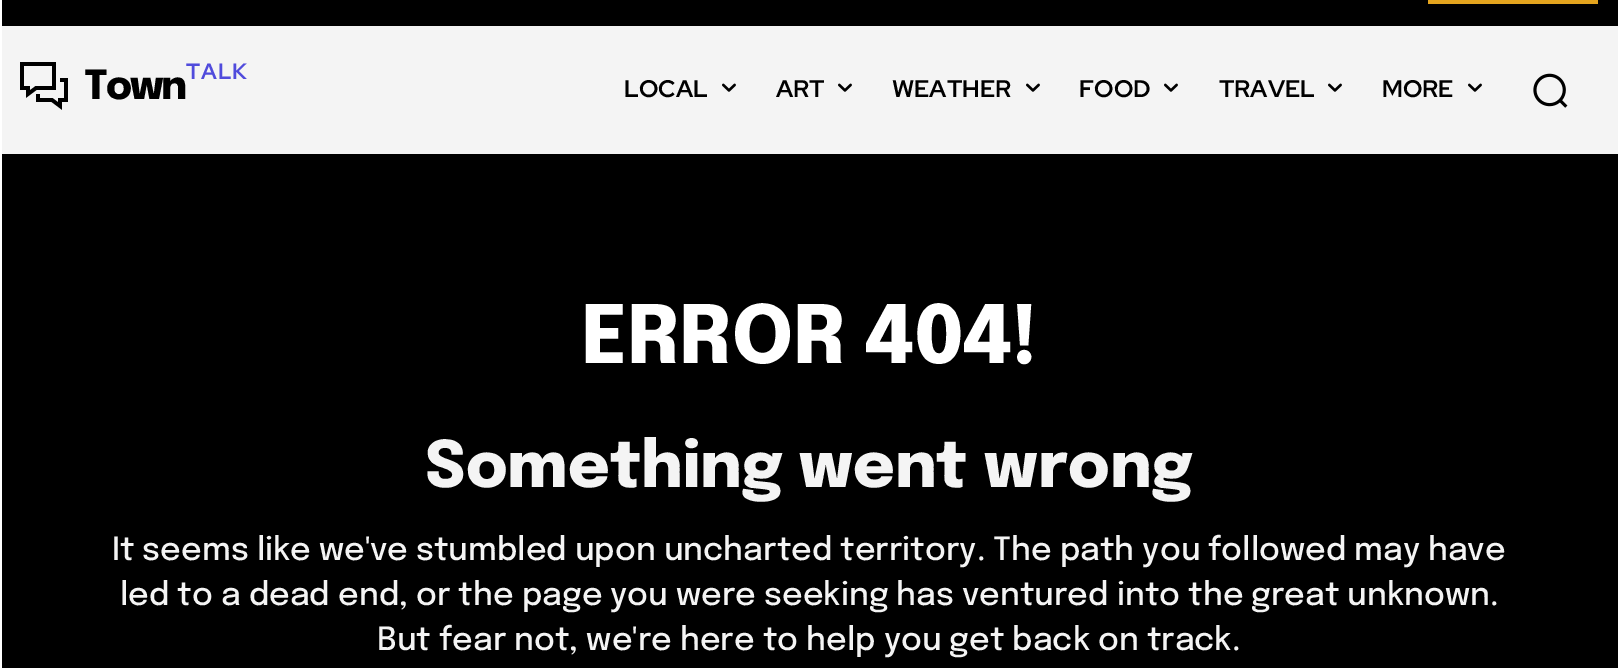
%!PS-Adobe-3.0
%%BoundingBox: 0 0 1618 668
%%LanguageLevel: 3
%%Pages: 1
%%EndComments
%%BeginProlog
/setink { dup -16 bitshift 255 div exch dup -8 bitshift 255 and 255 div exch 255 and 255 div setrgbcolor } def
/usefont { [ exch dup neg 0 0 3 -1 roll 0 0 ] selectfont } def
/drawimage { 5 dict begin { /h /w /y /x /name } { exch def } forall
  gsave x y translate w h scale
  w h 8 [w 0 0 h 0 0] name (r) file false 3 colorimage grestore end } def
%%EndProlog
%%BeginSetup
<< /PageSize [1618 668] >> setpagedevice
%%EndSetup
%%Page: 1 1
0 668 translate 1 -1 scale
4 setmiterlimit
16#FFFFFF setink
0 0 1618 668 rectfill
[
    [2 0 1616 26 16#000000]
    [1428 0 170 4 16#E4A41E]
    [2 26 1616 128 16#F4F4F4]
] { aload pop setink rectfill } forall
(img1.raw) 20 62 48 48 drawimage
/Epilogue-ExtraBold 40 usefont
16#000000 setink
84 99 moveto -2 0 (Town) ashow
/RedHatDisplay-Bold 22 usefont
16#504BDC setink
186 79 moveto 1 0 (TALK) ashow
/RedHatDisplay-Bold 24 usefont
16#000000 setink
624 97 moveto (LOCAL) show
(img2.raw) 722 83 14 9 drawimage
776 97 moveto (ART) show
(img2.raw) 838 83 14 9 drawimage
892 97 moveto (WEATHER) show
(img2.raw) 1026 83 14 9 drawimage
1079 97 moveto (FOOD) show
(img2.raw) 1164 83 14 9 drawimage
1219 97 moveto (TRAVEL) show
(img2.raw) 1328 83 14 9 drawimage
1382 97 moveto (MORE) show
(img2.raw) 1468 83 14 9 drawimage
(img3.raw) 1533 73 35 35 drawimage
2 154 1616 514 rectfill
/Epilogue-ExtraBold 80 usefont
16#FFFFFF setink
581 363 moveto (ERROR 404!) show
/Epilogue-ExtraBold 64 usefont
16#F4F4F4 setink
425 487 moveto (Something went wrong) show
/Epilogue-Medium 32 usefont
[
    [(It seems like we've stumbled upon uncharted territory. The path you followed may have) 112 560]
    [(led to a dead end, or the page you were seeking has ventured into the great unknown.) 120 605]
    [(But fear not, we're here to help you get back on track.) 377 650]
] { aload pop moveto show } forall
showpage
%%EOF
